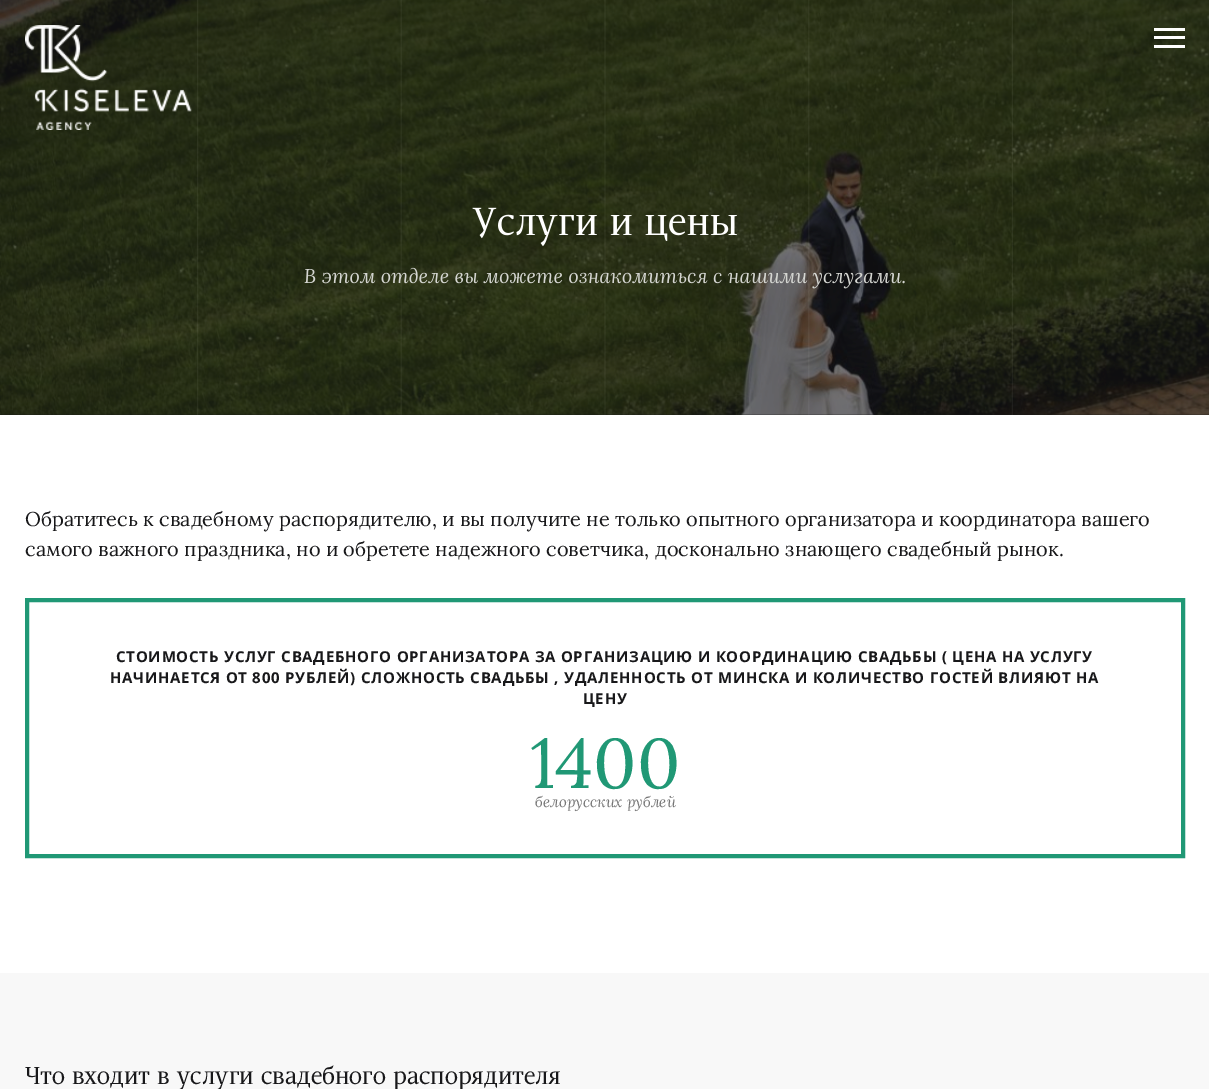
%!PS-Adobe-3.0
%%BoundingBox: 0 0 1209 1089
%%LanguageLevel: 3
%%Pages: 1
%%EndComments
%%BeginProlog
/setink { dup -16 bitshift 255 div exch dup -8 bitshift 255 and 255 div exch 255 and 255 div setrgbcolor } def
/usefont { [ exch dup neg 0 0 3 -1 roll 0 0 ] selectfont } def
/drawimage { 5 dict begin { /h /w /y /x /name } { exch def } forall
  gsave x y translate w h scale
  w h 8 [w 0 0 h 0 0] name (r) file false 3 colorimage grestore end } def
%%EndProlog
%%BeginSetup
<< /PageSize [1209 1089] >> setpagedevice
%%EndSetup
%%Page: 1 1
0 1089 translate 1 -1 scale
4 setmiterlimit
16#FFFFFF setink
0 0 1209 1089 rectfill
16#18181A setink
0 0 1209 415 rectfill
(img2.raw) 0 0 1209 415 drawimage
(img1.raw) 25 25 167 105 drawimage
[
    [1154 28 31 3 16#FFFFFF]
    [1154 36 31 3 16#FFFFFF]
    [1154 45 31 3 16#FFFFFF]
] { aload pop setink rectfill } forall
/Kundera-Regular 40 usefont
472 235 moveto (Услуги и цены) show
/Lora-Italic 20 usefont
16#D5D6D2 setink
304 283 moveto (В этом отделе вы можете ознакомиться с нашими услугами.) show
(img3.raw) 197 0 816 415 drawimage
/Lora-Regular 20 usefont
16#18181A setink
25 526 moveto (Обратитесь к свадебному распорядителю, и вы получите не только опытного организатора и координатора вашего) show
25 556 moveto (самого важного праздника, но и обретете надежного советчика, досконально знающего свадебный рынок.) show
16#209875 setink
4 setlinewidth
27 600 1156 256 rectstroke
/OpenSans-Bold 15 usefont
16#18181A setink
116 662 moveto 0.75 0 (СТОИМОСТЬ УСЛУГ СВАДЕБНОГО ОРГАНИЗАТОРА ЗА ОРГАНИЗАЦИЮ И КООРДИНАЦИЮ СВАДЬБЫ \( ЦЕНА НА УСЛУГУ) ashow
110 683 moveto 0.75 0 (НАЧИНАЕТСЯ ОТ 800 РУБЛЕЙ\) СЛОЖНОСТЬ СВАДЬБЫ , УДАЛЕННОСТЬ ОТ МИНСКА И КОЛИЧЕСТВО ГОСТЕЙ ВЛИЯЮТ НА) ashow
583 704 moveto 0.75 0 (ЦЕНУ) ashow
/Lora-Regular 70 usefont
16#209875 setink
530 788 moveto (1400) show
/Lora-Italic 15 usefont
16#767676 setink
535 807 moveto (белорусских рублей) show
16#F8F8F8 setink
0 973 1209 116 rectfill
/Kundera-Regular 25 usefont
16#18181A setink
25 1084 moveto (Что входит в услуги свадебного распорядителя) show
showpage
%%EOF
